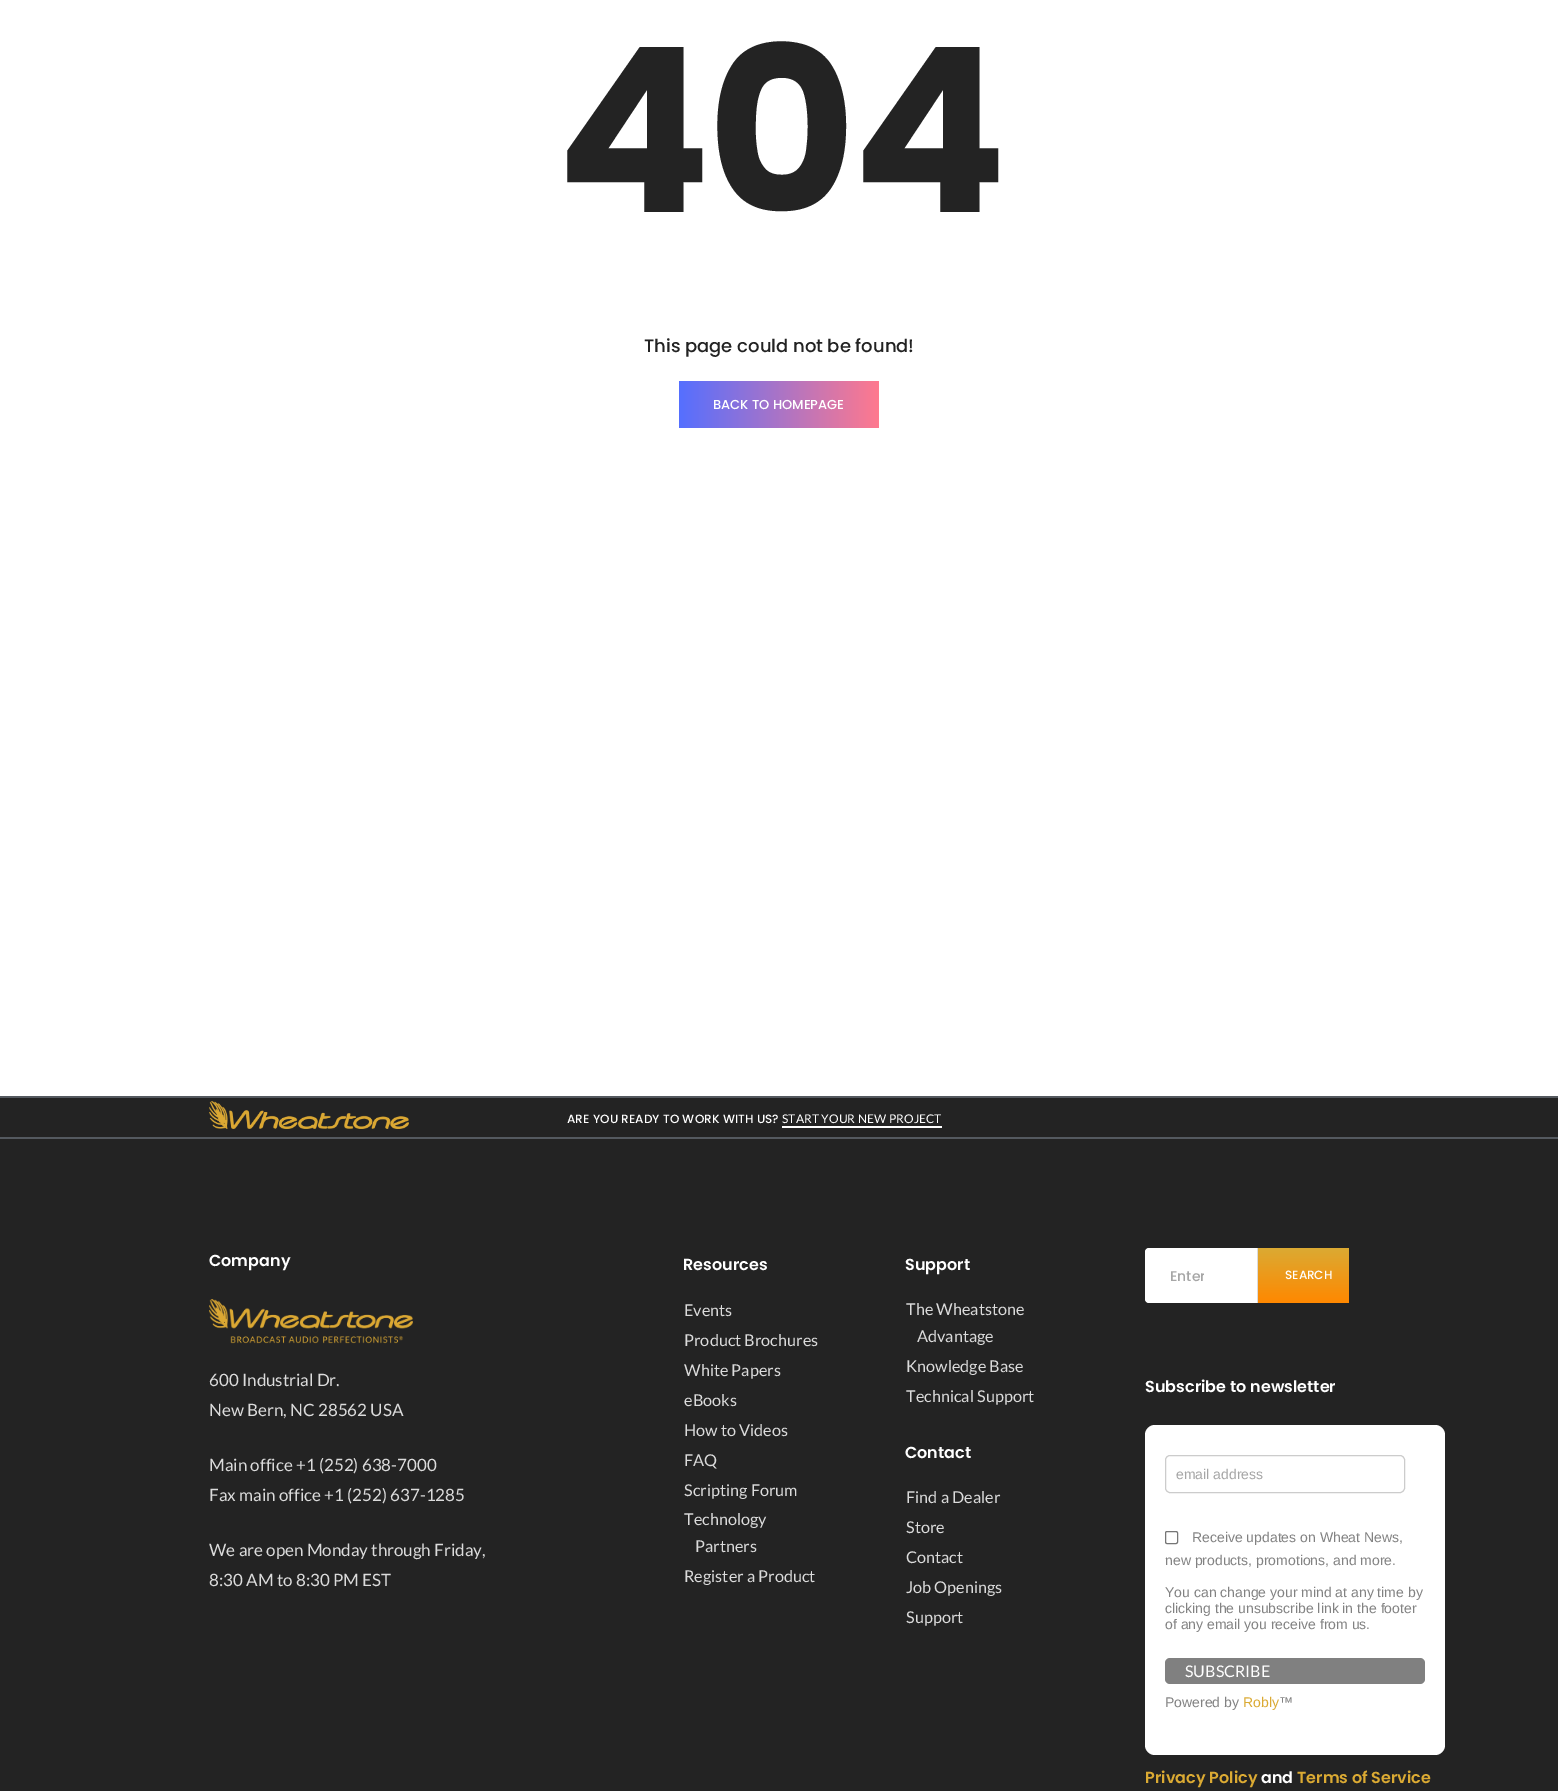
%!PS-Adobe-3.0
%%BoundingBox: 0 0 1558 1791
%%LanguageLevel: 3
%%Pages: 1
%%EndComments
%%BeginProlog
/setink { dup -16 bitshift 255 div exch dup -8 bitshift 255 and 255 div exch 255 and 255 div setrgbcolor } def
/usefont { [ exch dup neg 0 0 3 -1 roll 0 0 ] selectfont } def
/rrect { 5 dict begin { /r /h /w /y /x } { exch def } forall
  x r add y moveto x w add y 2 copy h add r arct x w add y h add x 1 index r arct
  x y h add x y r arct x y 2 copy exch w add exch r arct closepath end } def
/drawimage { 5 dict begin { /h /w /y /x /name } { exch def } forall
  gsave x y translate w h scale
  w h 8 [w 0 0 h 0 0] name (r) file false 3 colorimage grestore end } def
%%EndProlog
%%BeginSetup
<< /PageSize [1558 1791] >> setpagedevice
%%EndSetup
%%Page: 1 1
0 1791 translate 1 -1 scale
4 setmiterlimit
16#FFFFFF setink
0 0 1558 1791 rectfill
/Poppins-Bold 230 usefont
16#232323 setink
556 212 moveto -5 0 (404) ashow
/Poppins-Medium 18 usefont
644 352 moveto (This page could not be found!) show
gsave 679 381 moveto 879 381 lineto 879 428 lineto 679 428 lineto closepath clip newpath
<< /ShadingType 2 /ColorSpace /DeviceRGB /Coords [679 405 1079 405] /Extend [true true] /Function << /FunctionType 3 /Domain [0 1] /Functions [<< /FunctionType 2 /Domain [0 1] /C0 [0.333 0.435 1] /C1 [1 0.475 0.557] /N 1 >> << /FunctionType 2 /Domain [0 1] /C0 [1 0.475 0.557] /C1 [0.333 0.435 1] /N 1 >>] /Bounds [0.5] /Encode [0 1 0 1] >> >> shfill grestore
/Poppins-Medium 13 usefont
16#FFFFFF setink
713 409 moveto (BACK TO HOMEPAGE) show
[
    [0 1098 1558 39 16#232323]
    [0 1096 1558 2 16#54595F]
    [0 1137 1558 2 16#54595F]
] { aload pop setink rectfill } forall
(img1.raw) 209 1101 200 28 drawimage
/Poppins-Medium 12 usefont
16#FFFFFF setink
567 1123 moveto 0.1 0 (ARE YOU READY TO WORK WITH US?) ashow
/Lato-Regular 12 usefont
782 1123 moveto 0.1 0 (START YOUR NEW PROJECT) ashow
782 1126 160 2 rectfill
16#232323 setink
0 1139 1558 652 rectfill
/Poppins-SemiBold 16 usefont
16#FFFFFF setink
209 1266 moveto (Company) show
(img2.raw) 209 1299 204 45 drawimage
/Lato-Regular 17 usefont
16#DBDBDB setink
[
    [(600 Industrial Dr.) 209 1386]
    [(New Bern, NC 28562 USA) 209 1416]
    [(Main office +1 \(252\) 638-7000) 209 1471]
    [(Fax main office +1 \(252\) 637-1285) 209 1501]
    [(We are open Monday through Friday,) 209 1556]
    [(8:30 AM to 8:30 PM EST) 209 1586]
] { aload pop moveto show } forall
/Poppins-SemiBold 16 usefont
16#FFFFFF setink
683 1270 moveto (Resources) show
/Lato-Regular 16.25 usefont
16#DBDBDB setink
[
    [(Events) 684 1316]
    [(Product Brochures) 684 1346]
    [(White Papers) 684 1376]
    [(eBooks) 684 1406]
    [(How to Videos) 684 1436]
    [(FAQ) 684 1466]
    [(Scripting Forum) 684 1496]
    [(Technology) 684 1525]
    [(Partners) 695 1552]
    [(Register a Product) 684 1582]
] { aload pop moveto show } forall
/Poppins-SemiBold 16 usefont
16#FFFFFF setink
905 1270 moveto (Support) show
/Lato-Regular 16.25 usefont
16#DBDBDB setink
[
    [(The Wheatstone) 906 1315]
    [(Advantage) 917 1342]
    [(Knowledge Base) 906 1372]
    [(Technical Support) 906 1402]
] { aload pop moveto show } forall
/Poppins-SemiBold 16 usefont
16#FFFFFF setink
905 1458 moveto (Contact) show
/Lato-Regular 16.25 usefont
16#DBDBDB setink
[
    [(Find a Dealer) 906 1503]
    [(Store) 906 1533]
    [(Contact) 906 1563]
    [(Job Openings) 906 1593]
    [(Support) 906 1623]
] { aload pop moveto show } forall
16#FFFFFF setink
1145 1248 204 55 4 rrect fill
gsave
1170 1266 34 21 rectclip
/Poppins-Medium 14 usefont
16#A6A6A6 setink
1170 1281 moveto (Enter) show
grestore
gsave 1258 1248 moveto 1349 1248 lineto 1349 1303 lineto 1258 1303 lineto closepath clip newpath
<< /ShadingType 2 /ColorSpace /DeviceRGB /Coords [1304 1248 1304 1303] /Extend [true true] /Function << /FunctionType 2 /Domain [0 1] /C0 [0.859 0.667 0.2] /C1 [1 0.533 0] /N 1 >> >> shfill grestore
16#DBDBDB setink
1257 1248 1 55 rectfill
/Poppins-Medium 12 usefont
16#FFFFFF setink
1285 1279 moveto (SEARCH) show
/Poppins-SemiBold 16 usefont
1145 1392 moveto (Subscribe to newsletter) show
1145 1425 300 330 10 rrect fill
16#CCCCCC setink
1165.5 1455.5 239 37 4.5 rrect stroke
/LiberationSans-Regular 14 usefont
16#A6A6A6 setink
1176 1479 moveto (email address) show
16#767676 setink
1165.5 1531.5 12 12 1.5 rrect stroke
16#828282 setink
[
    [(Receive updates on Wheat News,) 1192 1542]
    [(new products, promotions, and more.) 1165 1565]
    [(You can change your mind at any time by) 1165 1597]
    [(clicking the unsubscribe link in the footer) 1165 1613]
    [(of any email you receive from us.) 1165 1629]
] { aload pop moveto show } forall
16#808080 setink
1165 1658 260 26 5 rrect fill
/Lato-Regular 16 usefont
16#FFFFFF setink
1185 1677 moveto (SUBSCRIBE) show
/LiberationSans-Regular 14 usefont
16#828282 setink
1165 1707 moveto (Powered by) show
16#DBAA33 setink
1243 1707 moveto (Robly) show
16#828282 setink
1279 1707 moveto (™) show
/Poppins-SemiBold 16 usefont
16#DBAA33 setink
1145 1783 moveto (Privacy Policy) show
16#FFFFFF setink
1261 1783 moveto (and) show
16#DBAA33 setink
1297 1783 moveto (Terms of Service) show
showpage
%%EOF
